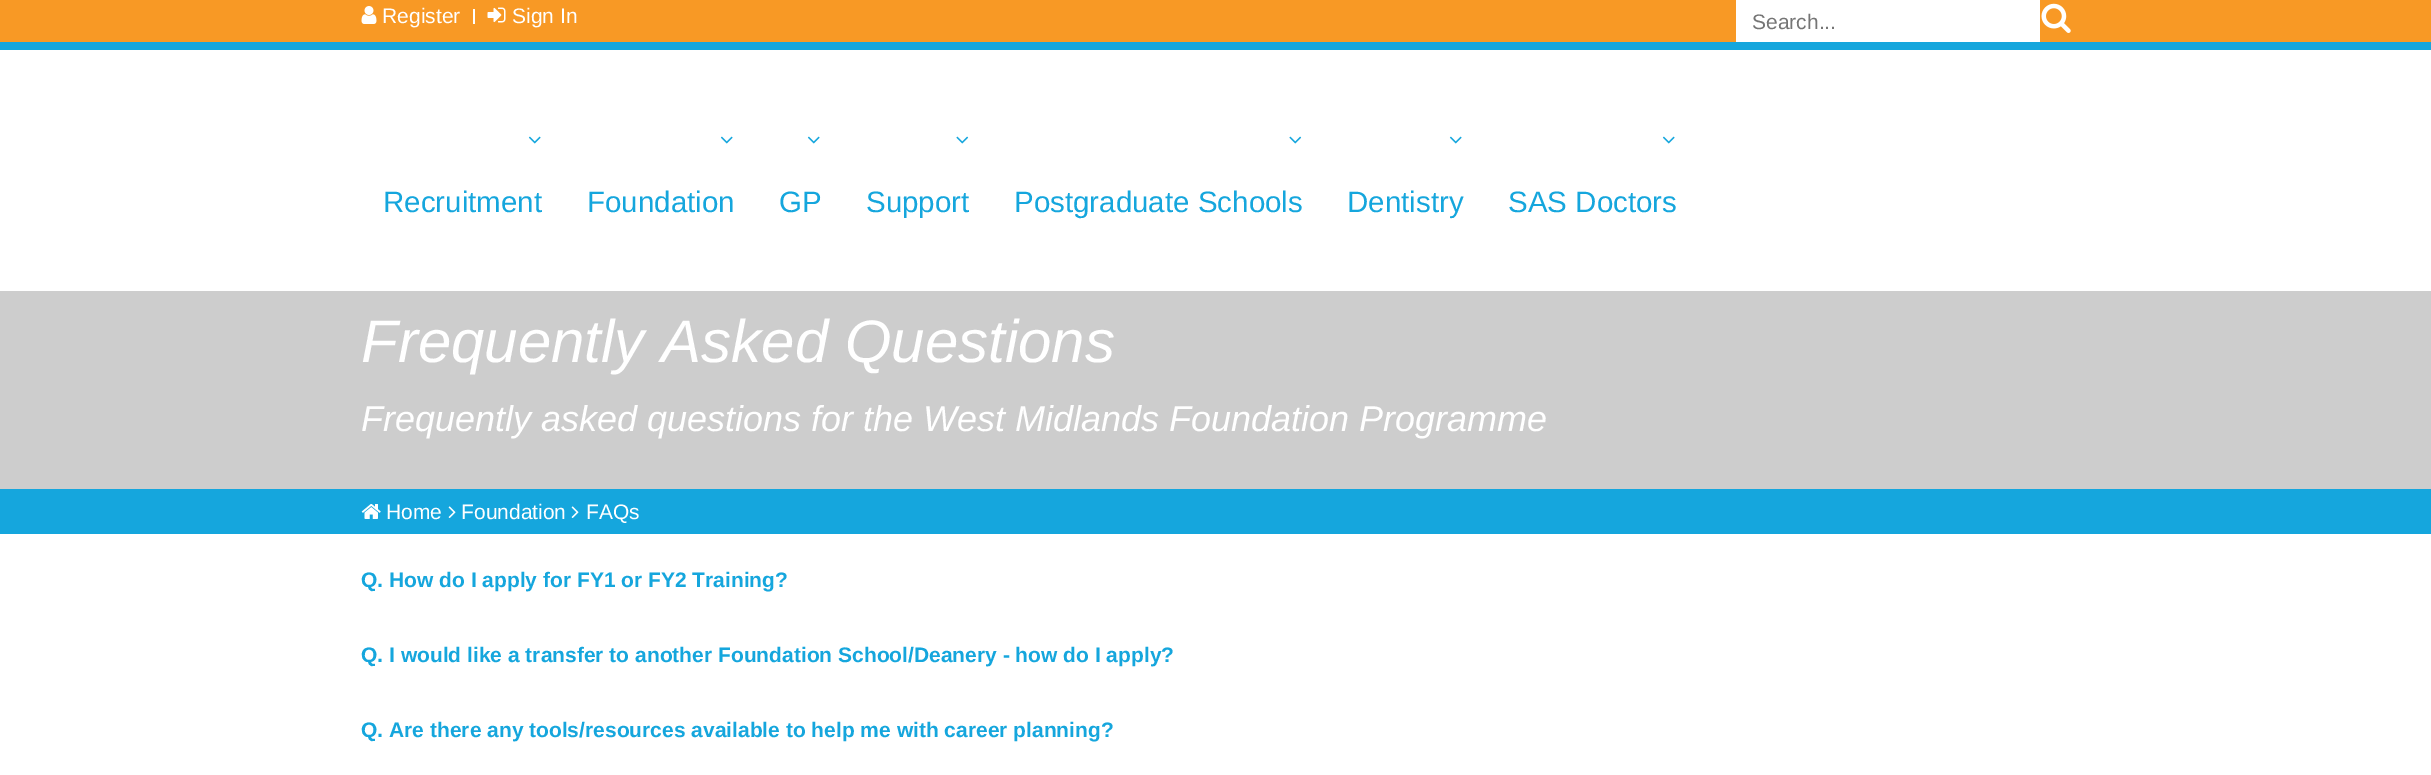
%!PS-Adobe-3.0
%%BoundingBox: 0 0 2431 775
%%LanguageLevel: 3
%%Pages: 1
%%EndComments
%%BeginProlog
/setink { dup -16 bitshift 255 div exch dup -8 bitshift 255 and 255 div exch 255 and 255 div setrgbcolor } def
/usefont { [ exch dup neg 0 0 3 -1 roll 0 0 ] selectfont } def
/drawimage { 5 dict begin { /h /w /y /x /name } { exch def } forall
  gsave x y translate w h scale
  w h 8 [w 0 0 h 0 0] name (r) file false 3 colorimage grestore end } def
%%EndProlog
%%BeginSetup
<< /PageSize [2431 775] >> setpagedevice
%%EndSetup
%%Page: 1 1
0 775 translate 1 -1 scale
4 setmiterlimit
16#FFFFFF setink
0 0 2431 775 rectfill
16#F89925 setink
0 0 2431 42 rectfill
16#15A6DD setink
0 42 2431 8 rectfill
(img1.raw) 361 6 16 18 drawimage
/LiberationSans-Regular 21 usefont
16#FFFFFF setink
382 23 moveto (Register) show
473 9 2 15 rectfill
(img2.raw) 487 7 19 16 drawimage
512 23 moveto (Sign In) show
1736 0 304 42 rectfill
16#757575 setink
1752 29 moveto (Search...) show
(img3.raw) 2041 3 30 30 drawimage
(img4.raw) 528 136 13 8 drawimage
/LiberationSans-Regular 29.5 usefont
16#15A6DD setink
383 212 moveto (Recruitment) show
(img4.raw) 720 136 13 8 drawimage
587 212 moveto (Foundation) show
(img4.raw) 807 136 13 8 drawimage
779 212 moveto (GP) show
(img5.raw) 956 136 13 8 drawimage
866 212 moveto (Support) show
(img5.raw) 1289 136 13 8 drawimage
1014 212 moveto (Postgraduate Schools) show
(img4.raw) 1449 136 13 8 drawimage
1347 212 moveto (Dentistry) show
(img4.raw) 1662 136 13 8 drawimage
1508 212 moveto (SAS Doctors) show
16#CDCDCD setink
0 291 2431 198 rectfill
/LiberationSans-Italic 60 usefont
16#FFFFFF setink
361 362 moveto (Frequently Asked Questions) show
/LiberationSans-Italic 36 usefont
361 431 moveto (Frequently asked questions for the West Midlands Foundation Programme) show
16#15A6DD setink
0 489 2431 45 rectfill
(img6.raw) 361 504 20 15 drawimage
/LiberationSans-Regular 21 usefont
16#FFFFFF setink
386 519 moveto (Home) show
(img7.raw) 448 506 8 12 drawimage
461 519 moveto (Foundation) show
(img7.raw) 571 506 8 12 drawimage
586 519 moveto (FAQs) show
/LiberationSans-Bold 21 usefont
16#15A6DD setink
[
    [(Q. How do I apply for FY1 or FY2 Training?) 361 587]
    [(Q. I would like a transfer to another Foundation School/Deanery - how do I apply?) 361 662]
    [(Q. Are there any tools/resources available to help me with career planning?) 361 737]
] { aload pop moveto show } forall
showpage
%%EOF
